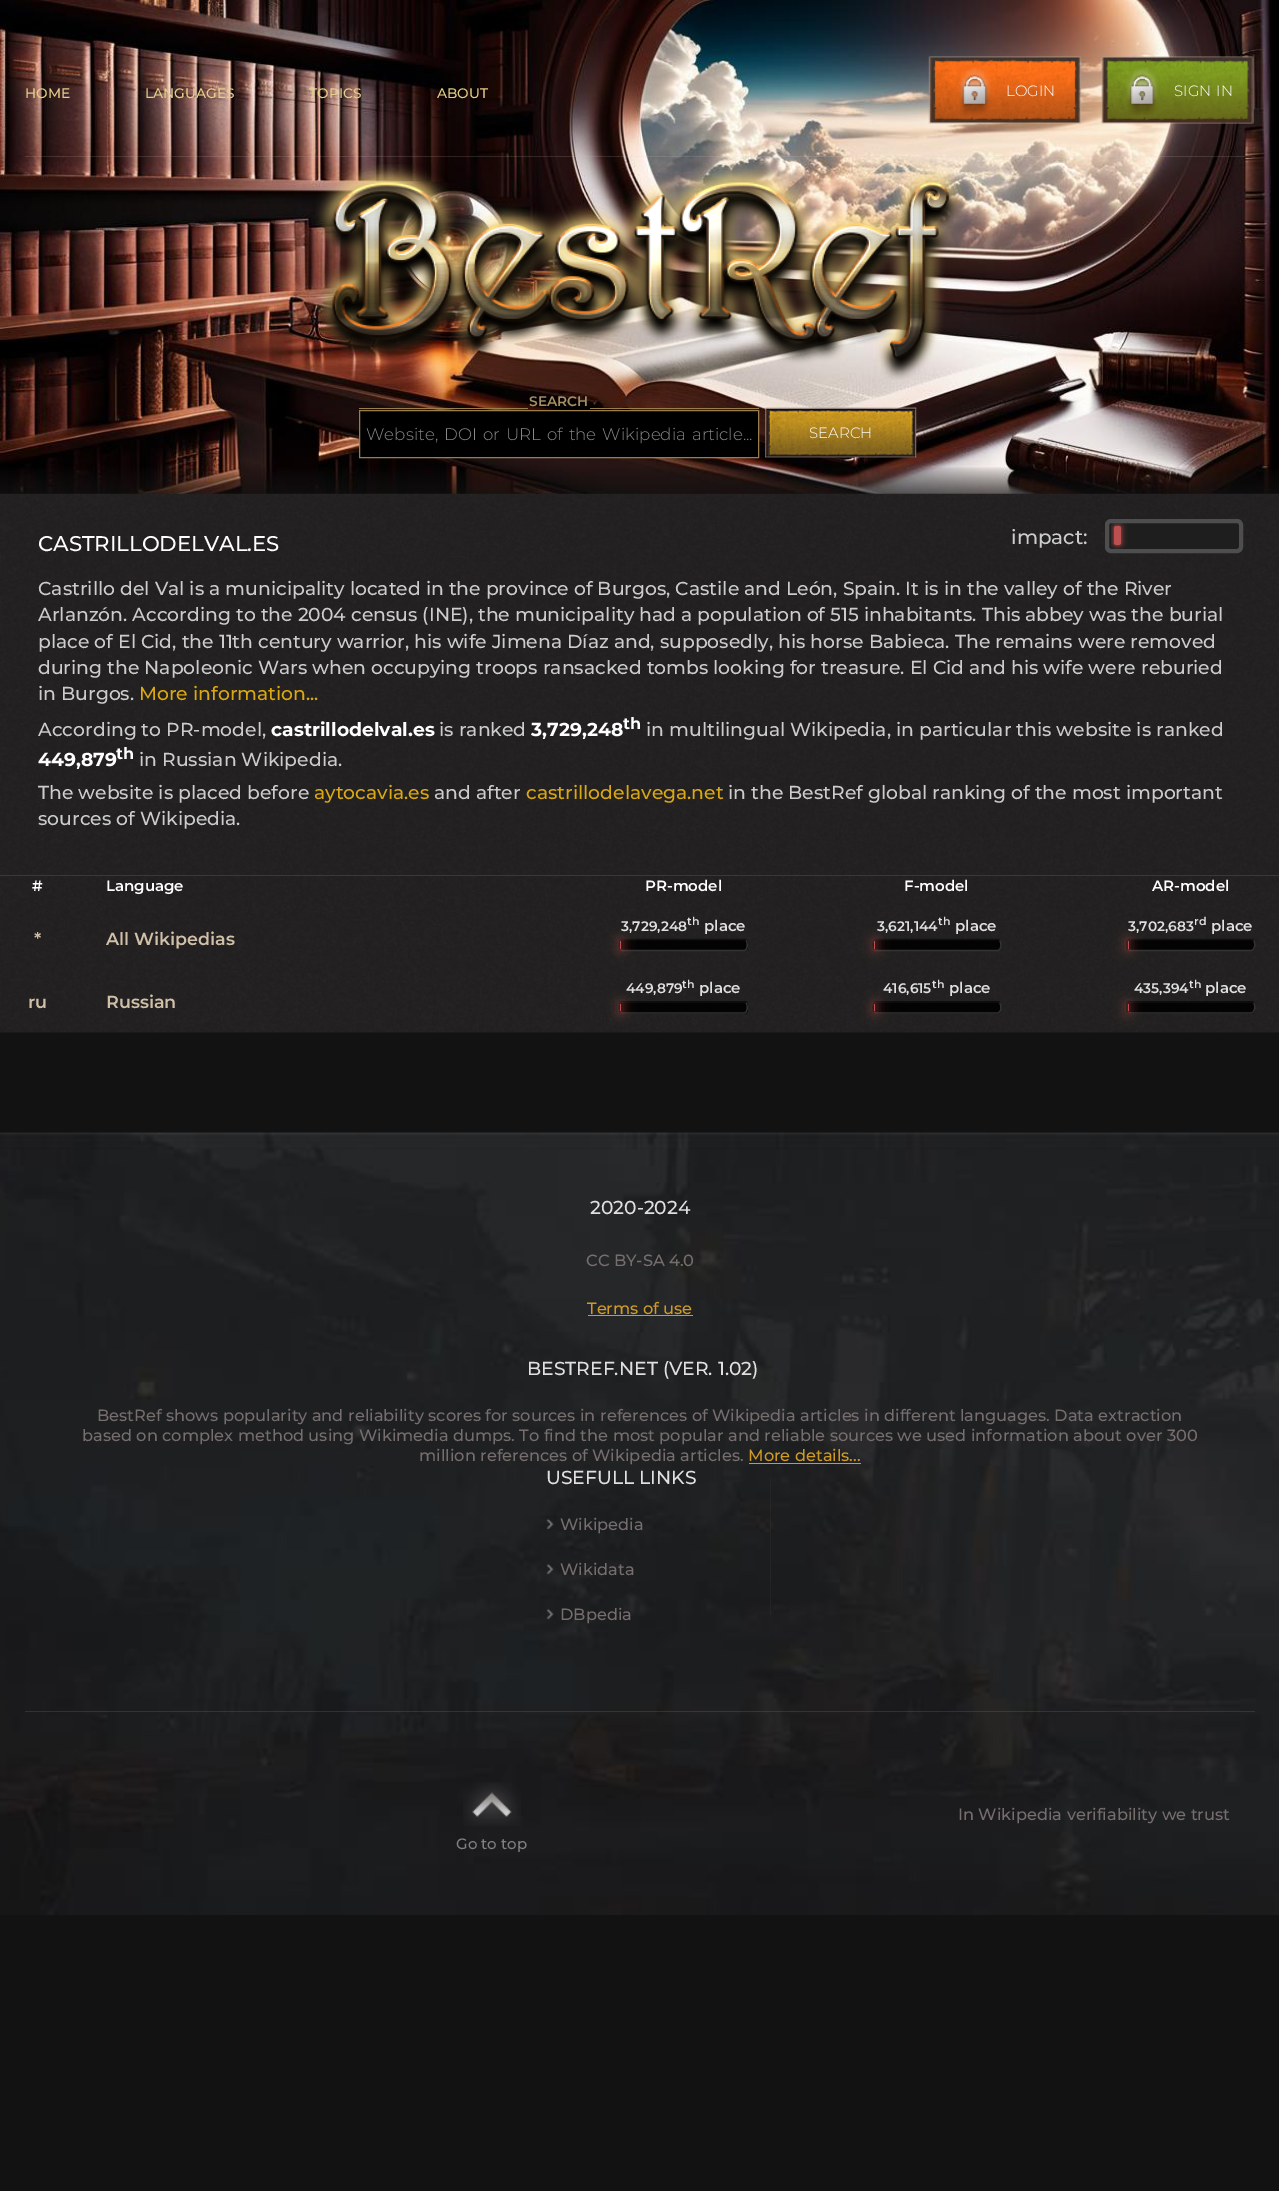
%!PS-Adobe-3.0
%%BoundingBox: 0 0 1279 2191
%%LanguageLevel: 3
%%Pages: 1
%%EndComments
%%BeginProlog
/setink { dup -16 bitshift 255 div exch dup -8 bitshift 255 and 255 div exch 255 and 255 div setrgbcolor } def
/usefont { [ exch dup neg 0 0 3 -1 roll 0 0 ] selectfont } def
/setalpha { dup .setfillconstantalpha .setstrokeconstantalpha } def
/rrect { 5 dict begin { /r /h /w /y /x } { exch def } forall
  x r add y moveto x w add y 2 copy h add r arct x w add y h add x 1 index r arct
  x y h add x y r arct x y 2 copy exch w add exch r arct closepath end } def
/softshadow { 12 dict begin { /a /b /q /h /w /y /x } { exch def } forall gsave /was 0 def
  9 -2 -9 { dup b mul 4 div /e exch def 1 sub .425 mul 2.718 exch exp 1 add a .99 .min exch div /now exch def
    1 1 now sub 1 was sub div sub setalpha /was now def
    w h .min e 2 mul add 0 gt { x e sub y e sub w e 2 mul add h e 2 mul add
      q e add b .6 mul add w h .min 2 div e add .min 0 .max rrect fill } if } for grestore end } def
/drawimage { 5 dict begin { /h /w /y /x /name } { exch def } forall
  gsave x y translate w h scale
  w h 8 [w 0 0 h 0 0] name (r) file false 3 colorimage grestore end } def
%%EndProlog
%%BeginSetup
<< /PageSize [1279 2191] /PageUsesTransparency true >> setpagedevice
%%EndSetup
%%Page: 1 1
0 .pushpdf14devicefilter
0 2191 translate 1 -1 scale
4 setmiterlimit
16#121212 setink
0 0 1279 2191 rectfill
(img1.raw) 0 0 1279 494 drawimage
0.15 setalpha
16#D7CCCC setink
25 156 1230 1 rectfill
/Montserrat-Medium 13.75 usefont
1 setalpha
16#E4CF86 setink
[
    [(HOME) 25 98]
    [(LANGUAGES) 145 98]
    [(TOPICS) 309 98]
    [(ABOUT) 437 98]
] { aload pop moveto show } forall
(img2.raw) 928 56 154 68 drawimage
(img3.raw) 958 67 33 49 drawimage
/Montserrat-Light 15 usefont
16#FFFFFF setink
1006 96 moveto (LOGIN) show
(img4.raw) 1101 56 153 68 drawimage
(img5.raw) 1126 67 33 48 drawimage
1174 96 moveto 1 0 32 (SIGN IN) widthshow
(img6.raw) 315 164 650 216 drawimage
/Montserrat-SemiBold 13.75 usefont
16#A88F64 setink
529 406 moveto (SEARCH) show
16#997D4C setink
359 408 169 1 rectfill
590 408 169 1 rectfill
16#000000 setink
359.5 410.5 moveto 758.5 410.5 lineto 758.5 457.5 lineto 359.5 457.5 lineto closepath gsave fill grestore
16#997D4C setink
stroke
/Montserrat-Light 16.7 usefont
16#888888 setink
366 440 moveto 1.75 0 32 (Website, DOI or URL of the Wikipedia article...) widthshow
(img7.raw) 765 407 152 51 drawimage
/Montserrat-Light 15 usefont
16#FFFFFF setink
809 438 moveto (SEARCH) show
(img8.raw) 0 493 1279 540 drawimage
16#3A3939 setink
0 875 1279 1 rectfill
/Montserrat-Medium 21.25 usefont
16#FFFFFF setink
38 551 moveto (CASTRILLODELVAL.ES) show
/Montserrat-Medium 20 usefont
16#CCCCCC setink
1011 544 moveto (impact:) show
16#1E1E1E setink
1107 521 134 30 4 rrect gsave fill grestore
16#4E4E4E setink
4 setlinewidth
stroke
gsave
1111 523 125 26 rectclip
16#BC5050 setink
1114 526 7 19 2.5 3 1 softshadow
grestore
16#BC5050 setink
1114 526 7 19 2.5 rrect fill
/Montserrat-Medium 18.75 usefont
16#CCCCCC setink
[
    [(Castrillo del Val is a municipality located in the province of Burgos, Castile and León, Spain. It is in the valley of the River) 38 595]
    [(Arlanzón. According to the 2004 census \(INE\), the municipality had a population of 515 inhabitants. This abbey was the burial) 38 621]
    [(place of El Cid, the 11th century warrior, his wife Jimena Díaz and, supposedly, his horse Babieca. The remains were removed) 38 648]
    [(during the Napoleonic Wars when occupying troops ransacked tombs looking for treasure. El Cid and his wife were reburied) 38 674]
    [(in Burgos.) 38 700]
] { aload pop moveto show } forall
16#DAA812 setink
139 700 moveto (More information...) show
16#CCCCCC setink
38 736 moveto (According to PR-model,) show
/Montserrat-Bold 18.75 usefont
16#FFFFFF setink
271 736 moveto (castrillodelval.es) show
/Montserrat-Medium 18.75 usefont
16#CCCCCC setink
439 736 moveto (is ranked) show
/Montserrat-Bold 18.75 usefont
16#FFFFFF setink
531 736 moveto (3,729,248) show
/Montserrat-Bold 16 usefont
623 729 moveto (th) show
/Montserrat-Medium 18.75 usefont
16#CCCCCC setink
646 736 moveto (in multilingual Wikipedia, in particular this website is ranked) show
/Montserrat-Bold 18.75 usefont
16#FFFFFF setink
38 766 moveto (449,879) show
/Montserrat-Bold 16 usefont
116 759 moveto (th) show
/Montserrat-Medium 18.75 usefont
16#CCCCCC setink
139 766 moveto (in Russian Wikipedia.) show
38 799 moveto (The website is placed before) show
16#DAA812 setink
314 799 moveto (aytocavia.es) show
16#CCCCCC setink
434 799 moveto (and after) show
16#DAA812 setink
526 799 moveto (castrillodelavega.net) show
16#CCCCCC setink
728 799 moveto (in the BestRef global ranking of the most important) show
38 825 moveto (sources of Wikipedia.) show
/Montserrat-SemiBold 15 usefont
16#FFFFFF setink
[
    [(#) 32 891]
    [(Language) 106 891]
    [(PR-model) 645 891]
    [(F-model) 904 891]
    [(AR-model) 1152 891]
] { aload pop moveto show } forall
16#030303 setink
619 939 129 12 4 rrect fill
16#333333 setink
1.2 setlinewidth
746 940.5 moveto 748 942 748 950.5 744 950.5 curveto 622 950.5 lineto 620.5 949.5 lineto stroke
16#111111 setink
620.5 949.5 moveto 618.5 948 618 939.5 622.5 939.5 curveto 744 939.5 lineto 746 940.5 lineto stroke
16#BC5050 setink
619 940 4 10 0 6 0.51 softshadow
/Montserrat-SemiBold 13.75 usefont
16#E0E0E0 setink
621 931 moveto (3,729,248) show
/Montserrat-SemiBold 11 usefont
687 925 moveto (th) show
/Montserrat-SemiBold 15 usefont
704 931 moveto (place) show
16#BC5050 setink
620 941 1 8 rectfill
16#030303 setink
873 939 128 12 4 rrect fill
16#333333 setink
999.5 940.5 moveto 1001.5 942 1002 950.5 997.5 950.5 curveto 876 950.5 lineto 874 949.5 lineto stroke
16#111111 setink
874 949.5 moveto 872 948 872 939.5 876 939.5 curveto 998 939.5 lineto 999.5 940.5 lineto stroke
16#BC5050 setink
873 940 4 10 0 6 0.51 softshadow
874 941 1 8 rectfill
/Montserrat-SemiBold 13.75 usefont
16#E0E0E0 setink
877 931 moveto (3,621,144) show
/Montserrat-SemiBold 11 usefont
938 925 moveto (th) show
/Montserrat-SemiBold 15 usefont
955 931 moveto (place) show
16#030303 setink
1126 939 129 12 4 rrect fill
16#333333 setink
1253.5 940.5 moveto 1255.5 942 1255.5 950.5 1251 950.5 curveto 1129.5 950.5 lineto 1128 949.5 lineto stroke
16#111111 setink
1128 949.5 moveto 1126 948 1125.5 939.5 1130 939.5 curveto 1251.5 939.5 lineto 1253.5 940.5 lineto stroke
16#BC5050 setink
1126 940 4 10 0 6 0.51 softshadow
/Montserrat-SemiBold 13.75 usefont
16#E0E0E0 setink
1128 931 moveto (3,702,683) show
/Montserrat-SemiBold 11 usefont
1194 925 moveto (rd) show
/Montserrat-SemiBold 15 usefont
1211 931 moveto (place) show
16#BC5050 setink
1128 941 1 8 rectfill
/Montserrat-SemiBold 17.5 usefont
16#D0C0A8 setink
34 945 moveto (*) show
106 945 moveto (All Wikipedias) show
16#030303 setink
619 1001 129 13 4 rrect fill
16#333333 setink
746 1003 moveto 748 1004.5 748 1013 744 1013 curveto 622 1013 lineto 620.5 1012 lineto stroke
16#111111 setink
620.5 1012 moveto 618.5 1010.5 618 1002 622.5 1002 curveto 744 1002 lineto 746 1003 lineto stroke
16#BC5050 setink
619 1003 4 10 0 6 0.51 softshadow
620 1004 1 7 rectfill
/Montserrat-SemiBold 13.75 usefont
16#E0E0E0 setink
626 993 moveto (449,879) show
/Montserrat-SemiBold 11 usefont
682 988 moveto (th) show
/Montserrat-SemiBold 15 usefont
699 993 moveto (place) show
16#030303 setink
873 1001 128 13 4 rrect fill
16#333333 setink
999.5 1003 moveto 1001.5 1004.5 1002 1013 997.5 1013 curveto 876 1013 lineto 874 1012 lineto stroke
16#111111 setink
874 1012 moveto 872 1010.5 872 1002 876 1002 curveto 998 1002 lineto 999.5 1003 lineto stroke
16#BC5050 setink
873 1003 4 10 0 6 0.51 softshadow
874 1004 1 7 rectfill
/Montserrat-SemiBold 13.75 usefont
16#E0E0E0 setink
883 993 moveto (416,615) show
/Montserrat-SemiBold 11 usefont
932 988 moveto (th) show
/Montserrat-SemiBold 15 usefont
949 993 moveto (place) show
16#030303 setink
1126 1001 129 13 4 rrect fill
16#333333 setink
1253.5 1003 moveto 1255.5 1004.5 1255.5 1013 1251 1013 curveto 1129.5 1013 lineto 1128 1012 lineto stroke
16#111111 setink
1128 1012 moveto 1126 1010.5 1125.5 1002 1130 1002 curveto 1251.5 1002 lineto 1253.5 1003 lineto stroke
16#BC5050 setink
1126 1003 4 10 0 6 0.51 softshadow
1128 1004 1 7 rectfill
/Montserrat-SemiBold 13.75 usefont
16#E0E0E0 setink
1134 993 moveto (435,394) show
/Montserrat-SemiBold 11 usefont
1189 988 moveto (th) show
/Montserrat-SemiBold 15 usefont
1205 993 moveto (place) show
/Montserrat-SemiBold 17.5 usefont
16#D0C0A8 setink
28 1008 moveto (ru) show
106 1008 moveto (Russian) show
(img9.raw) 0 1132 1279 783 drawimage
0.1 setalpha
16#F4F4F4 setink
25 1711 1230 1 rectfill
/Montserrat-Medium 18.75 usefont
1 setalpha
16#E0E0E0 setink
590 1214 moveto (2020-2024) show
/Montserrat-Medium 16.25 usefont
16#766D6D setink
586 1266 moveto (CC BY-SA 4.0) show
16#D09A26 setink
587 1314 moveto (Terms of use) show
588 1315 105 1 rectfill
/Montserrat-Medium 18.75 usefont
16#E0E0E0 setink
527 1375 moveto (BESTREF.NET \(VER. 1.02\)) show
/Montserrat-Medium 16.25 usefont
16#766D6D setink
[
    [(BestRef shows popularity and reliability scores for sources in references of Wikipedia articles in different languages. Data extraction) 97 1421]
    [(based on complex method using Wikimedia dumps. To find the most popular and reliable sources we used information about over 300) 82 1441]
    [(million references of Wikipedia articles.) 419 1461]
] { aload pop moveto show } forall
16#D09A26 setink
748 1461 moveto (More details...) show
749 1463 112 1 rectfill
/Montserrat-Medium 18.75 usefont
16#E0E0E0 setink
546 1484 moveto (USEFULL LINKS) show
0.03 setalpha
16#FFFFFF setink
770 1478 1 137 rectfill
1 setalpha
(img10.raw) 546 1518 8 12 drawimage
/Montserrat-Medium 16.25 usefont
16#766D6D setink
560 1530 moveto (Wikipedia) show
(img11.raw) 546 1563 8 12 drawimage
560 1575 moveto (Wikidata) show
(img12.raw) 546 1608 8 12 drawimage
560 1620 moveto (DBpedia) show
958 1820 moveto (In Wikipedia verifiability we trust) show
(img13.raw) 463 1782 58 44 drawimage
/Montserrat-Medium 15 usefont
16#808080 setink
456 1849 moveto (Go to top) show
.poppdf14devicefilter showpage
%%EOF
